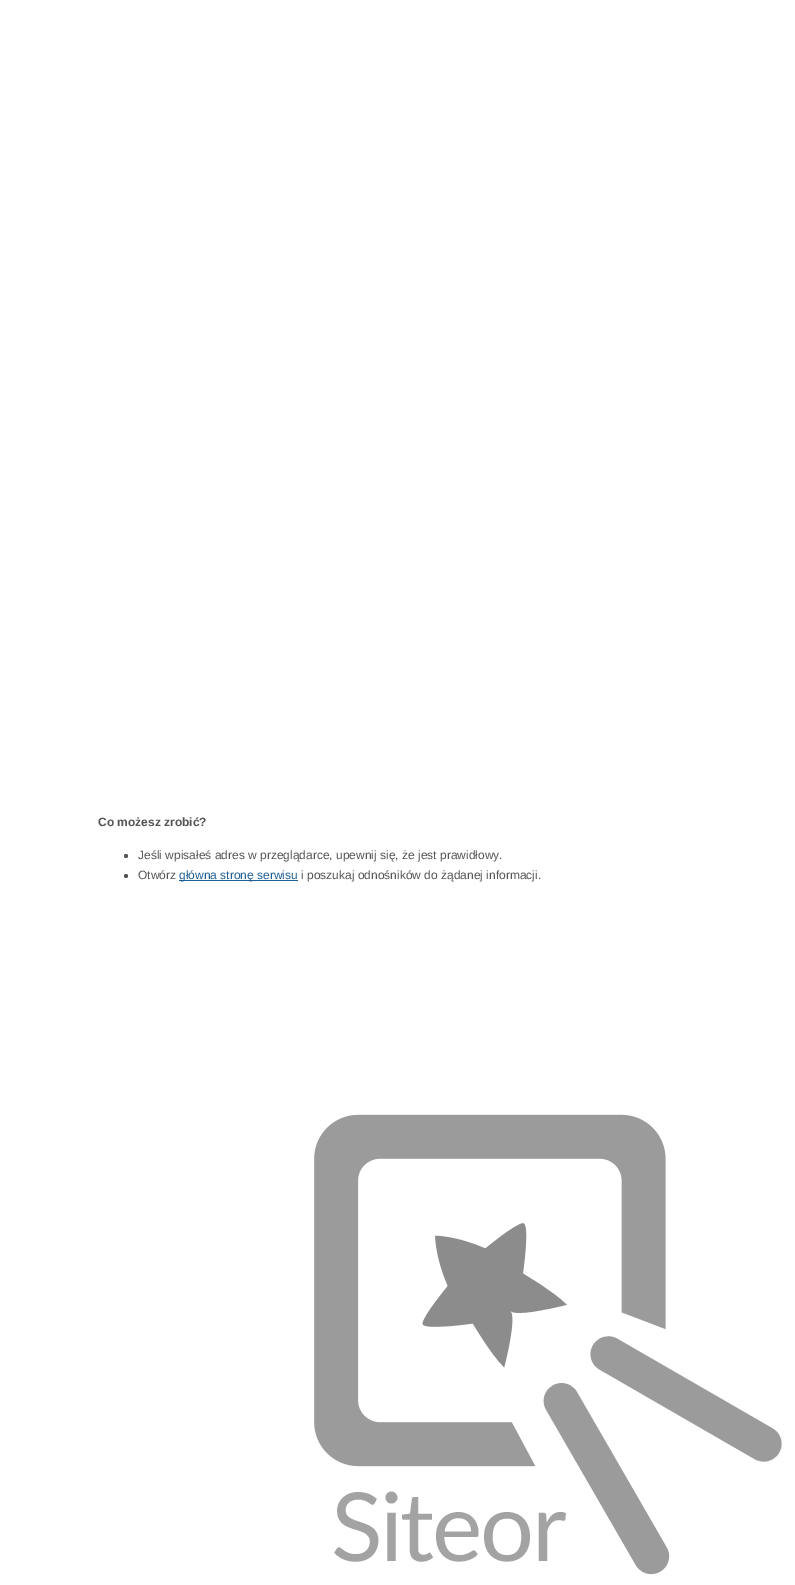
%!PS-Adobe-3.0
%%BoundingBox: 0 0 795 1585
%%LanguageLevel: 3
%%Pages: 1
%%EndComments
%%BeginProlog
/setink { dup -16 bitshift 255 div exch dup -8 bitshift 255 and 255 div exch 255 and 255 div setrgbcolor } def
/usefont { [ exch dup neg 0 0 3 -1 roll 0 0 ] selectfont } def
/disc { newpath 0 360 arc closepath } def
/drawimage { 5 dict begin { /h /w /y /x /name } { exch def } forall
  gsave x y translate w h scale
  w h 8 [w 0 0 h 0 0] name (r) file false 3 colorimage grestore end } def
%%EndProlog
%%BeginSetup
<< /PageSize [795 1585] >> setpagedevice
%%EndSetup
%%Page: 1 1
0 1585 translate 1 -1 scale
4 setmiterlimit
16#FFFFFF setink
0 0 795 1585 rectfill
(img1.raw) 314 1114 468 461 drawimage
/LiberationSans-Bold 12 usefont
16#555555 setink
98 826 moveto (Co możesz zrobić?) show
126 856 2 disc fill
/LiberationSans-Regular 12 usefont
138 859 moveto (Jeśli wpisałeś adres w przeglądarce, upewnij się, że jest prawidłowy.) show
126 876 2 disc fill
138 879 moveto (Otwórz) show
16#1F5F96 setink
179 880 119 1 rectfill
179 879 moveto (główna stronę serwisu) show
16#555555 setink
301 879 moveto (i poszukaj odnośników do żądanej informacji.) show
showpage
%%EOF
